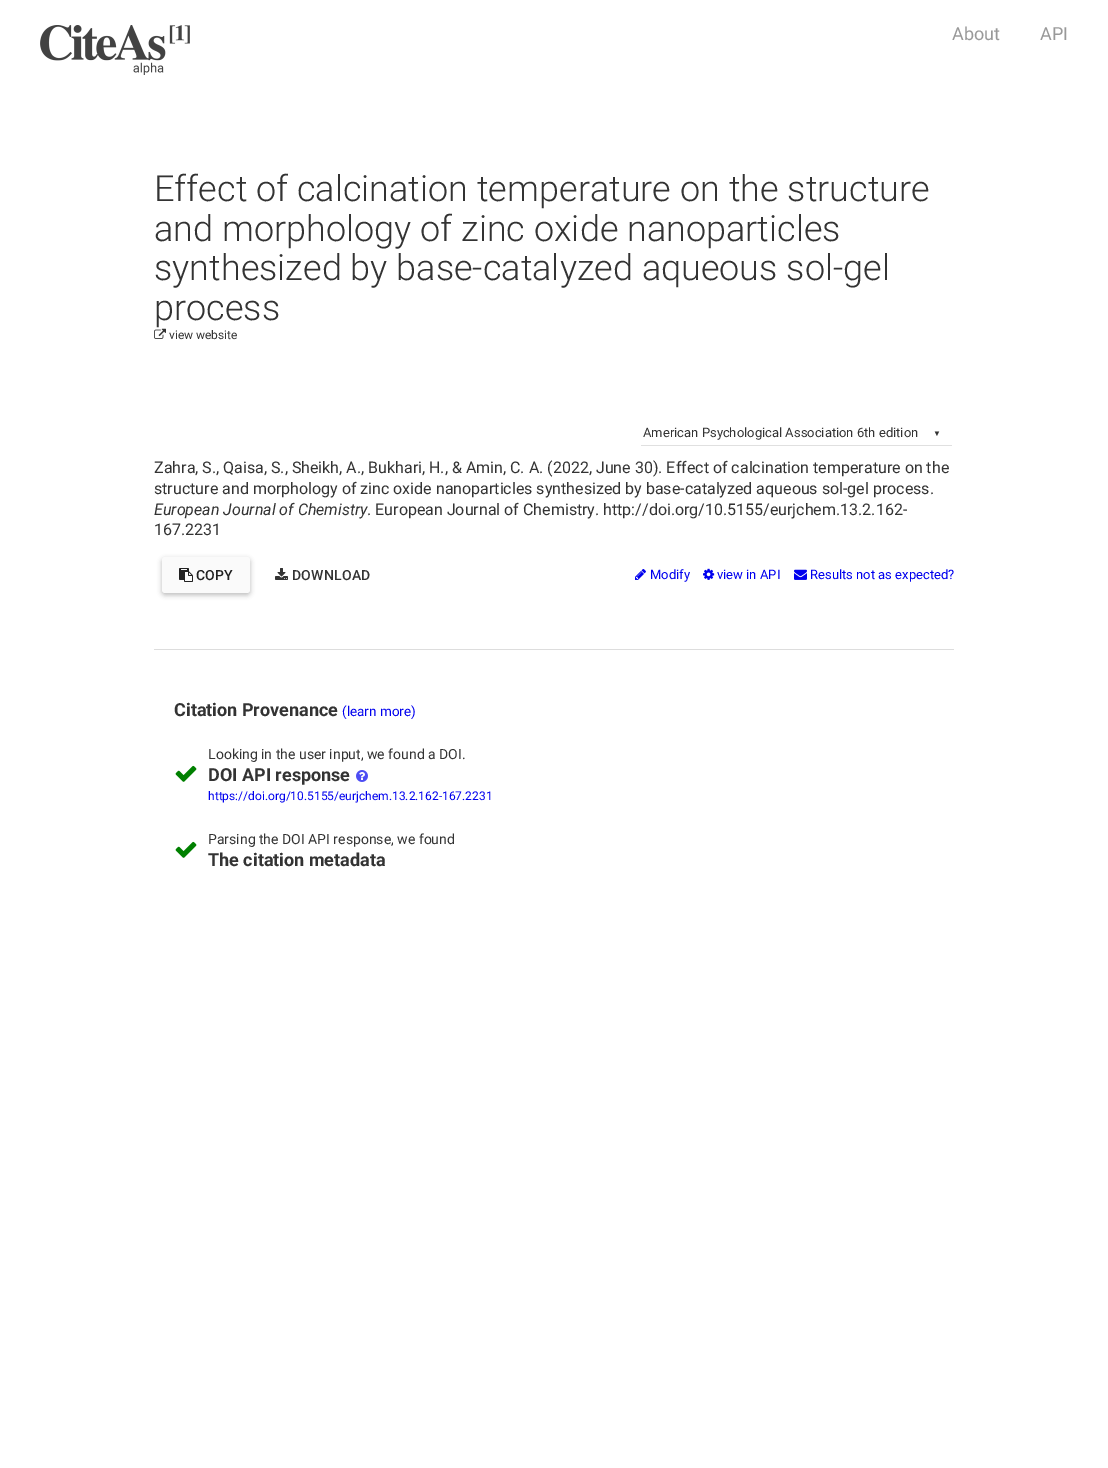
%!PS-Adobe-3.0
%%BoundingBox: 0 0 1108 1468
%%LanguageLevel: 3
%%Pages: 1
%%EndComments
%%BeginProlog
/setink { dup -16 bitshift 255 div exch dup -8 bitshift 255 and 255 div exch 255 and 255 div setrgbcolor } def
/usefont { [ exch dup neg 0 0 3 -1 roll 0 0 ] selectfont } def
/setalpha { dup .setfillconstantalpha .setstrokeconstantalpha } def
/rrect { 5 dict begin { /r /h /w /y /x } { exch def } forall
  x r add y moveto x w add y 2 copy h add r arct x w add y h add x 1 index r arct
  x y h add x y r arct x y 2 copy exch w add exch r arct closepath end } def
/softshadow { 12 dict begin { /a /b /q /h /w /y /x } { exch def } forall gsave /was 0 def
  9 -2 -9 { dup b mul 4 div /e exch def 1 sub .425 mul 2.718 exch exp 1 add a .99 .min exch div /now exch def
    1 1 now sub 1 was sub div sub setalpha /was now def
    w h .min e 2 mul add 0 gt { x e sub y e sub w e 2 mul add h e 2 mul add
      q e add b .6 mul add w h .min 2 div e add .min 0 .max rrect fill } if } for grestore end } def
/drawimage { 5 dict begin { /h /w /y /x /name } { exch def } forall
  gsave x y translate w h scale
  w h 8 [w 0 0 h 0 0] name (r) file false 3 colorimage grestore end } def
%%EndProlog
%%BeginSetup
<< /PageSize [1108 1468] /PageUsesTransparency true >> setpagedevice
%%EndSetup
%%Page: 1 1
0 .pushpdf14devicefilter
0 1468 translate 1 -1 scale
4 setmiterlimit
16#FFFFFF setink
0 0 1108 1468 rectfill
(img1.raw) 40 25 150 50 drawimage
/Roboto-Regular 18 usefont
16#999999 setink
952 40 moveto (About) show
1040 40 moveto (API) show
/Roboto-Light 36 usefont
16#333333 setink
[
    [(Effect of calcination temperature on the structure) 154 201]
    [(and morphology of zinc oxide nanoparticles) 154 241]
    [(synthesized by base-catalyzed aqueous sol-gel) 154 280]
    [(process) 154 320]
] { aload pop moveto show } forall
(img2.raw) 154 328 12 11 drawimage
/Roboto-Regular 12 usefont
169 339 moveto (view website) show
16#E0E0E0 setink
641 445 311 1 rectfill
/Roboto-Regular 13 usefont
16#333333 setink
643 437 moveto (American Psychological Association 6th edition) show
/LiberationSerif-Regular 8 usefont
933 436 moveto 5 0 (▼) ashow
/Roboto-Regular 16 usefont
154 473 moveto (Zahra, S., Qaisa, S., Sheikh, A., Bukhari, H., & Amin, C. A. \(2022, June 30\). Effect of calcination temperature on the) show
154 494 moveto (structure and morphology of zinc oxide nanoparticles synthesized by base-catalyzed aqueous sol-gel process.) show
/Roboto-Italic 16 usefont
154 515 moveto (European Journal of Chemistry) show
/Roboto-Regular 16 usefont
367 515 moveto (. European Journal of Chemistry. http://doi.org/10.5155/eurjchem.13.2.162-) show
154 535 moveto (167.2231) show
16#000000 setink
162 559 88 36 3 2.5 0.26 softshadow
16#FAFAFA setink
162 557 88 36 3 rrect fill
(img3.raw) 179 568 14 14 drawimage
/Roboto-Medium 14 usefont
16#212121 setink
196 580 moveto 0.25 0 (COPY) ashow
(img4.raw) 275 568 13 12 drawimage
16#333333 setink
292 580 moveto 0.25 0 (DOWNLOAD) ashow
(img5.raw) 635 569 11 11 drawimage
/Roboto-Regular 13 usefont
16#0000EE setink
650 579 moveto (Modify) show
(img6.raw) 703 568 12 12 drawimage
717 579 moveto (view in API) show
(img7.raw) 794 569 13 11 drawimage
810 579 moveto (Results not as expected?) show
16#DDDDDD setink
154 649 800 1 rectfill
/Roboto-Bold 18 usefont
16#333333 setink
174 716 moveto (Citation Provenance) show
/Roboto-Regular 13.5 usefont
16#0000EE setink
342 716 moveto (\(learn more\)) show
(img8.raw) 175 765 22 17 drawimage
/Roboto-Regular 14 usefont
16#333333 setink
208 759 moveto (Looking in the user input, we found a DOI.) show
/Roboto-Bold 18 usefont
208 781 moveto (DOI API response) show
(img9.raw) 356 770 12 12 drawimage
/Roboto-Regular 12 usefont
16#0000EE setink
208 800 moveto (https://doi.org/10.5155/eurjchem.13.2.162-167.2231) show
(img8.raw) 175 841 22 17 drawimage
/Roboto-Regular 14 usefont
16#333333 setink
208 844 moveto (Parsing the DOI API response, we found) show
/Roboto-Bold 18 usefont
208 866 moveto (The citation metadata) show
.poppdf14devicefilter showpage
%%EOF
